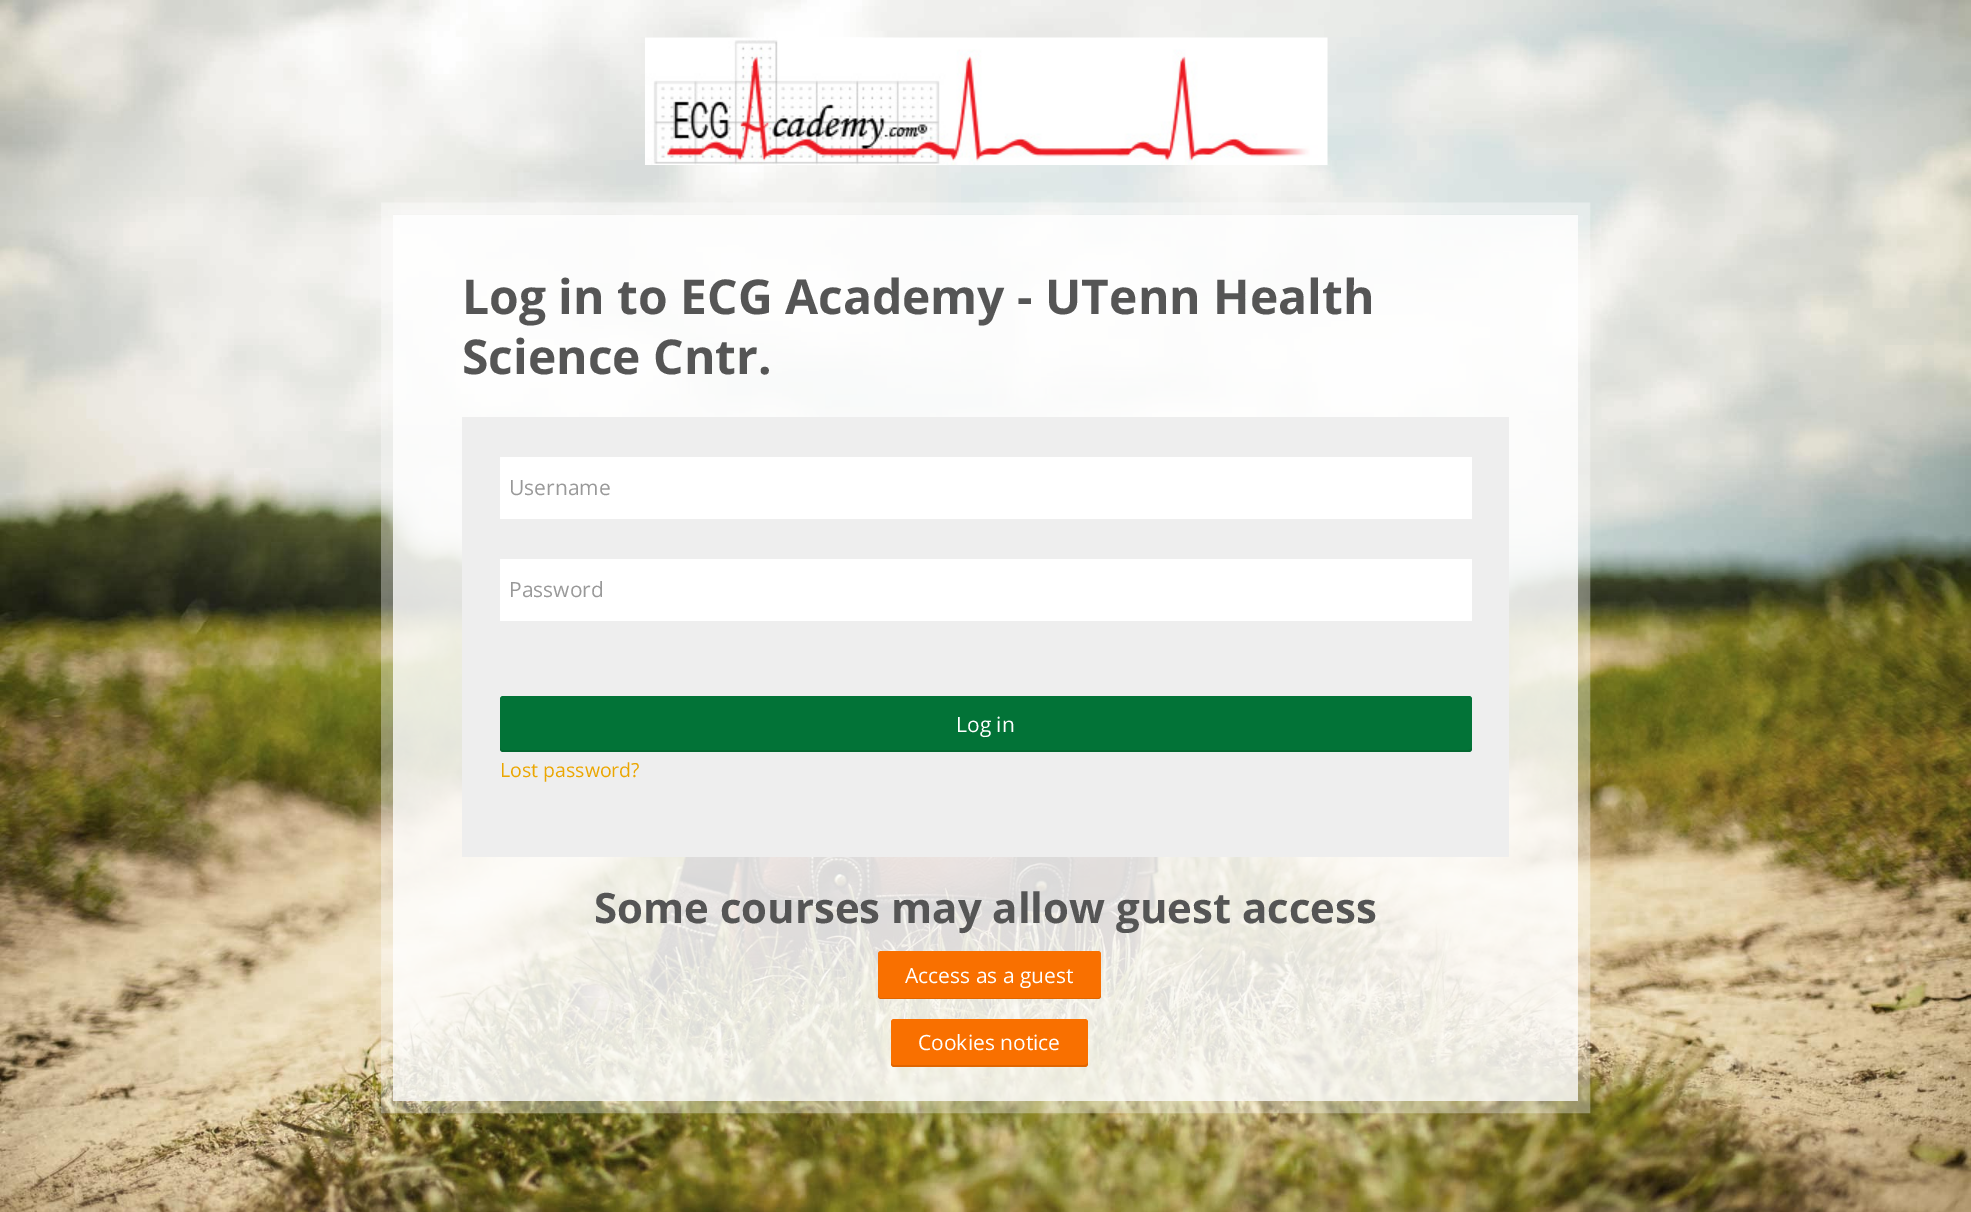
%!PS-Adobe-3.0
%%BoundingBox: 0 0 1971 1212
%%LanguageLevel: 3
%%Pages: 1
%%EndComments
%%BeginProlog
/setink { dup -16 bitshift 255 div exch dup -8 bitshift 255 and 255 div exch 255 and 255 div setrgbcolor } def
/usefont { [ exch dup neg 0 0 3 -1 roll 0 0 ] selectfont } def
/setalpha { dup .setfillconstantalpha .setstrokeconstantalpha } def
/rrect { 5 dict begin { /r /h /w /y /x } { exch def } forall
  x r add y moveto x w add y 2 copy h add r arct x w add y h add x 1 index r arct
  x y h add x y r arct x y 2 copy exch w add exch r arct closepath end } def
/drawimage { 5 dict begin { /h /w /y /x /name } { exch def } forall
  gsave x y translate w h scale
  w h 8 [w 0 0 h 0 0] name (r) file false 3 colorimage grestore end } def
%%EndProlog
%%BeginSetup
<< /PageSize [1971 1212] /PageUsesTransparency true >> setpagedevice
%%EndSetup
%%Page: 1 1
0 .pushpdf14devicefilter
0 1212 translate 1 -1 scale
4 setmiterlimit
16#FFFFFF setink
0 0 1971 1212 rectfill
(img1.raw) 0 0 1971 1212 drawimage
(img2.raw) 645 37 683 128 drawimage
0.85 setalpha
393 215 1185 886 rectfill
0.35 setalpha
12 setlinewidth
387 208.5 moveto 1584 208.5 lineto 1584 1107 lineto 387 1107 lineto closepath stroke
/OpenSans-Bold 48 usefont
1 setalpha
16#555555 setink
462 314 moveto (Log in to ECG Academy - UTenn Health) show
462 374 moveto (Science Cntr.) show
16#EEEEEE setink
462 417 1047 440 rectfill
16#FFFFFF setink
500 457 972 62 rectfill
/OpenSans-Regular 21 usefont
16#999999 setink
509 495 moveto (Username) show
16#FFFFFF setink
500 559 972 62 rectfill
16#999999 setink
509 597 moveto (Password) show
16#027337 setink
500 696 972 56 3 rrect fill
0.1 setalpha
16#000000 setink
500 747 moveto 500 749 lineto 500 751 501 752 503 752 curveto 1469 752 lineto 1471 752 1472 751 1472 749 curveto 1472 747 lineto 1472 749 1470 750 1468 750 curveto 502 750 lineto 501 750 500 749 500 747 curveto closepath fill
1 setalpha
16#FFFFFF setink
956 732 moveto (Log in) show
/OpenSans-Regular 19.5 usefont
16#EBA600 setink
500 777 moveto (Lost password?) show
/OpenSans-Bold 41.9 usefont
16#555555 setink
594 923 moveto (Some courses may allow guest access) show
16#F97000 setink
878 951 223 48 3 rrect fill
0.1 setalpha
16#000000 setink
878 994 moveto 878 996 lineto 878 998 879 999 881 999 curveto 1098 999 lineto 1100 999 1101 998 1101 996 curveto 1101 994 lineto 1101 996 1100 998 1098 998 curveto 880 998 lineto 879 998 878 996 878 994 curveto closepath fill
/OpenSans-Regular 21 usefont
1 setalpha
16#FFFFFF setink
905 983 moveto (Access as a guest) show
16#F97000 setink
891 1019 197 48 3 rrect fill
0.1 setalpha
16#000000 setink
891 1062 moveto 891 1064 891 1066 893 1067 curveto 1086 1067 lineto 1088 1066 1088 1064 1088 1062 curveto 1088 1064 1086 1065 1084 1065 curveto 894 1065 lineto 892 1065 891 1064 891 1062 curveto closepath fill
1 setalpha
16#FFFFFF setink
918 1050 moveto (Cookies notice) show
.poppdf14devicefilter showpage
%%EOF
